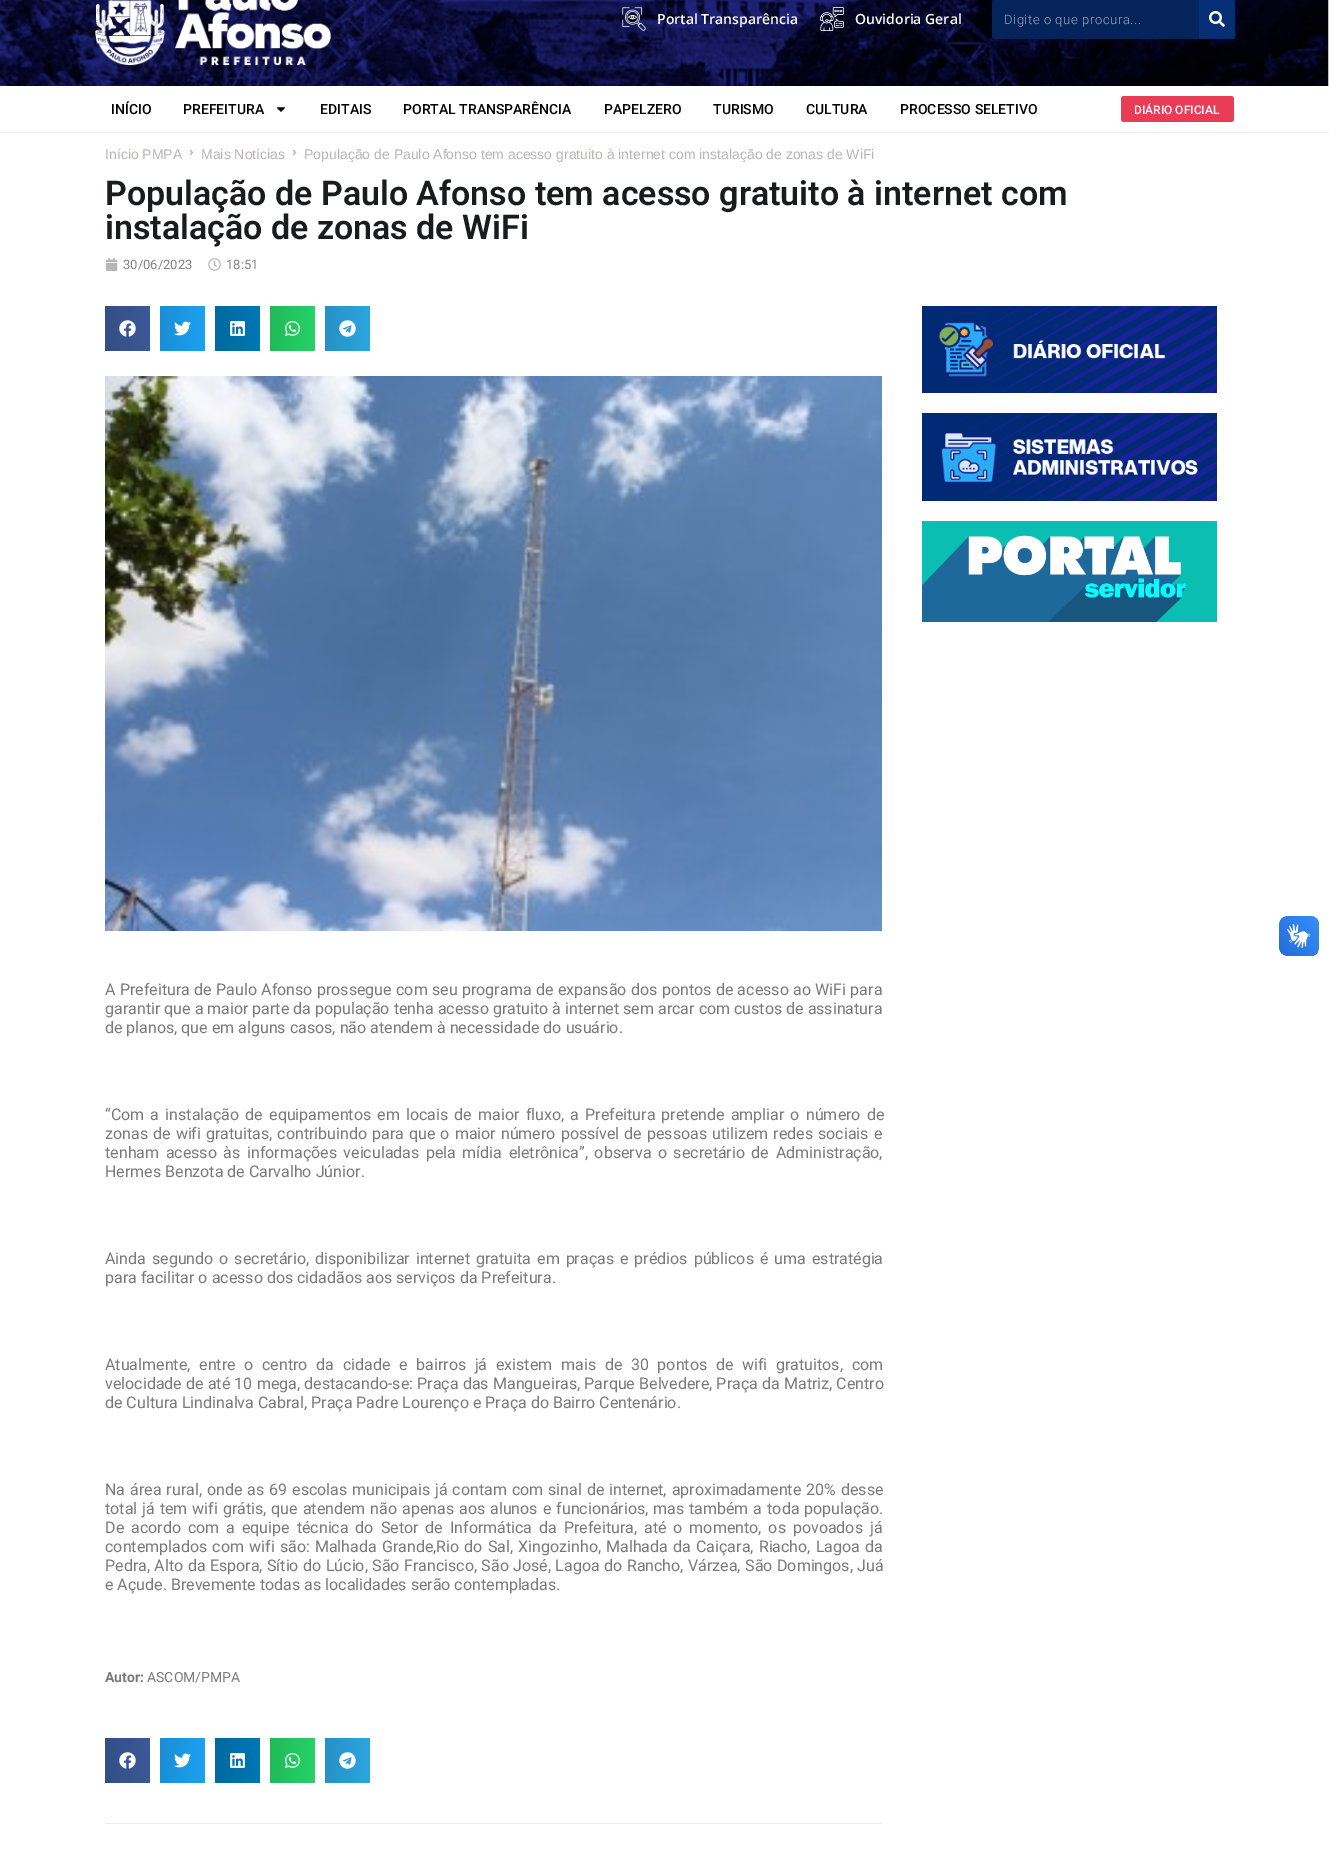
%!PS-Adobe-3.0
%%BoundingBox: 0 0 1329 1872
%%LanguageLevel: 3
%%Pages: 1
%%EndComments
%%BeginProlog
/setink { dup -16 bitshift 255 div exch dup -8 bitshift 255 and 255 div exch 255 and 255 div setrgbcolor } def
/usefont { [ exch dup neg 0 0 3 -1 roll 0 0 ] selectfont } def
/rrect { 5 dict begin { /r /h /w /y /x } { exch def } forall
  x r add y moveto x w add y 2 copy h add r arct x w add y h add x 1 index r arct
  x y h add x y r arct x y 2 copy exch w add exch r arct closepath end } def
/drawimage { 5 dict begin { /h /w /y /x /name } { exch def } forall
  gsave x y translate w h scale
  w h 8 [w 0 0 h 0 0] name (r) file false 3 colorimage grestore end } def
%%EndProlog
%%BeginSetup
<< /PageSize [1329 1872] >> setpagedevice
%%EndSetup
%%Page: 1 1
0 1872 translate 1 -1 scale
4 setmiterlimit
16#FFFFFF setink
0 0 1329 1872 rectfill
(img1.raw) 0 0 1329 86 drawimage
(img2.raw) 95 0 236 66 drawimage
(img3.raw) 622 7 24 24 drawimage
/OpenSans-SemiBold 14 usefont
657 24 moveto (Portal Transparência) show
(img4.raw) 820 7 24 24 drawimage
855 24 moveto (Ouvidoria Geral) show
16#05245C setink
992 -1 243 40 3 rrect fill
/Roboto-Light 13 usefont
16#9BA7BE setink
1004 24 moveto 0.6 0 (Digite o que procura...) ashow
16#062E75 setink
1199 -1 moveto 1232 -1 lineto 1233.5 -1 1235 0.5 1235 2 curveto 1235 36 lineto 1235 37.5 1233.5 39 1232 39 curveto 1199 39 lineto closepath fill
(img5.raw) 1209 11 16 16 drawimage
16#EDEDED setink
0 132 1329 1 rectfill
/Roboto-Medium 14 usefont
16#000000 setink
111 114 moveto (INÍCIO) show
183 114 moveto (PREFEITURA) show
(img6.raw) 277 107 8 5 drawimage
[
    [(EDITAIS) 320 114]
    [(PORTAL TRANSPARÊNCIA) 403 114]
    [(PAPELZERO) 604 114]
    [(TURISMO) 713 114]
    [(CULTURA) 806 114]
    [(PROCESSO SELETIVO) 900 114]
] { aload pop moveto show } forall
16#E93C57 setink
1121 96 113 26 3 rrect fill
/Roboto-Medium 12 usefont
16#FFFFFF setink
1134 114 moveto (DIÁRIO OFICIAL) show
/LiberationSans-Regular 14 usefont
16#B8B5B5 setink
105 159 moveto (Início PMPA) show
(img7.raw) 189 149 5 7 drawimage
201 159 moveto (Mais Notícias) show
(img7.raw) 292 149 5 7 drawimage
304 159 moveto (População de Paulo Afonso tem acesso gratuito à internet com instalação de zonas de WiFi) show
/Roboto-SemiBold 34 usefont
16#1A1B1D setink
105 205 moveto (População de Paulo Afonso tem acesso gratuito à internet com) show
105 239 moveto (instalação de zonas de WiFi) show
(img8.raw) 105 258 13 13 drawimage
/Roboto-Regular 13 usefont
16#808183 setink
123 269 moveto (30/06/2023) show
(img9.raw) 208 258 13 13 drawimage
226 269 moveto (18:51) show
(img10.raw) 922 306 295 87 drawimage
(img11.raw) 922 413 295 88 drawimage
(img12.raw) 922 521 295 101 drawimage
gsave 105 306 moveto 150 306 lineto 150 351 lineto 105 351 lineto closepath clip newpath
<< /ShadingType 2 /ColorSpace /DeviceRGB /Coords [105 329 150 329] /Extend [true true] /Function << /FunctionType 2 /Domain [0 1] /C0 [0.204 0.306 0.525] /C1 [0.231 0.349 0.596] /N 1 >> >> shfill grestore
(img13.raw) 119 320 17 17 drawimage
gsave 160 306 moveto 205 306 lineto 205 351 lineto 160 351 lineto closepath clip newpath
<< /ShadingType 2 /ColorSpace /DeviceRGB /Coords [160 329 205 329] /Extend [true true] /Function << /FunctionType 2 /Domain [0 1] /C0 [0.102 0.557 0.835] /C1 [0.114 0.631 0.949] /N 1 >> >> shfill grestore
(img14.raw) 174 321 17 15 drawimage
gsave 215 306 moveto 260 306 lineto 260 351 lineto 215 351 lineto closepath clip newpath
<< /ShadingType 2 /ColorSpace /DeviceRGB /Coords [215 329 260 329] /Extend [true true] /Function << /FunctionType 2 /Domain [0 1] /C0 [0 0.412 0.624] /C1 [0 0.467 0.71] /N 1 >> >> shfill grestore
(img15.raw) 230 321 15 15 drawimage
gsave 270 306 moveto 315 306 lineto 315 351 lineto 270 351 lineto closepath clip newpath
<< /ShadingType 2 /ColorSpace /DeviceRGB /Coords [270 329 315 329] /Extend [true true] /Function << /FunctionType 2 /Domain [0 1] /C0 [0.129 0.729 0.353] /C1 [0.145 0.827 0.4] /N 1 >> >> shfill grestore
(img16.raw) 285 321 15 15 drawimage
gsave 325 306 moveto 370 306 lineto 370 351 lineto 325 351 lineto closepath clip newpath
<< /ShadingType 2 /ColorSpace /DeviceRGB /Coords [325 329 370 329] /Extend [true true] /Function << /FunctionType 2 /Domain [0 1] /C0 [0.153 0.569 0.773] /C1 [0.173 0.647 0.878] /N 1 >> >> shfill grestore
(img17.raw) 339 320 17 17 drawimage
(img18.raw) 105 376 777 555 drawimage
/Roboto-Regular 16 usefont
16#7A7A7A setink
105 995 moveto 0.4 0 32 (A Prefeitura de Paulo Afonso prossegue com seu programa de expansão dos pontos de acesso ao WiFi para) widthshow
105 1014 moveto (garantir que a maior parte da população tenha acesso gratuito à internet sem arcar com custos de assinatura) show
105 1033 moveto (de planos, que em alguns casos, não atendem à necessidade do usuário.) show
105 1120 moveto 2.25 0 32 (“Com a instalação de equipamentos em locais de maior fluxo, a Prefeitura pretende ampliar o número de) widthshow
105 1139 moveto 1.1 0 32 (zonas de wifi gratuitas, contribuindo para que o maior número possível de pessoas utilizem redes sociais e) widthshow
105 1158 moveto 2.6 0 32 (tenham acesso às informações veiculadas pela mídia eletrônica”, observa o secretário de Administração,) widthshow
105 1177 moveto (Hermes Benzota de Carvalho Júnior.) show
105 1264 moveto 2 0 32 (Ainda segundo o secretário, disponibilizar internet gratuita em praças e prédios públicos é uma estratégia) widthshow
105 1283 moveto (para facilitar o acesso dos cidadãos aos serviços da Prefeitura.) show
105 1370 moveto 4.75 0 32 (Atualmente, entre o centro da cidade e bairros já existem mais de 30 pontos de wifi gratuitos, com) widthshow
105 1389 moveto 0.25 0 32 (velocidade de até 10 mega, destacando-se: Praça das Mangueiras, Parque Belvedere, Praça da Matriz, Centro) widthshow
105 1408 moveto (de Cultura Lindinalva Cabral, Praça Padre Lourenço e Praça do Bairro Centenário.) show
105 1495 moveto 1 0 32 (Na área rural, onde as 69 escolas municipais já contam com sinal de internet, aproximadamente 20% desse) widthshow
105 1514 moveto 1 0 32 (total já tem wifi grátis, que atendem não apenas aos alunos e funcionários, mas também a toda população.) widthshow
105 1533 moveto 3 0 32 (De acordo com a equipe técnica do Setor de Informática da Prefeitura, até o momento, os povoados já) widthshow
105 1552 moveto 1.25 0 32 (contemplados com wifi são: Malhada Grande,Rio do Sal, Xingozinho, Malhada da Caiçara, Riacho, Lagoa da) widthshow
105 1571 moveto 0.5 0 32 (Pedra, Alto da Espora, Sítio do Lúcio, São Francisco, São José, Lagoa do Rancho, Várzea, São Domingos, Juá) widthshow
105 1590 moveto (e Açude. Brevemente todas as localidades serão contempladas.) show
/Roboto-Bold 14 usefont
105 1682 moveto (Autor:) show
/Roboto-Regular 14 usefont
147 1682 moveto (ASCOM/PMPA) show
gsave 105 1738 moveto 150 1738 lineto 150 1783 lineto 105 1783 lineto closepath clip newpath
<< /ShadingType 2 /ColorSpace /DeviceRGB /Coords [105 1761 150 1761] /Extend [true true] /Function << /FunctionType 2 /Domain [0 1] /C0 [0.204 0.306 0.525] /C1 [0.231 0.349 0.596] /N 1 >> >> shfill grestore
(img13.raw) 119 1752 17 17 drawimage
gsave 160 1738 moveto 205 1738 lineto 205 1783 lineto 160 1783 lineto closepath clip newpath
<< /ShadingType 2 /ColorSpace /DeviceRGB /Coords [160 1761 205 1761] /Extend [true true] /Function << /FunctionType 2 /Domain [0 1] /C0 [0.102 0.557 0.835] /C1 [0.114 0.631 0.949] /N 1 >> >> shfill grestore
(img14.raw) 174 1753 17 15 drawimage
gsave 215 1738 moveto 260 1738 lineto 260 1783 lineto 215 1783 lineto closepath clip newpath
<< /ShadingType 2 /ColorSpace /DeviceRGB /Coords [215 1761 260 1761] /Extend [true true] /Function << /FunctionType 2 /Domain [0 1] /C0 [0 0.412 0.624] /C1 [0 0.467 0.71] /N 1 >> >> shfill grestore
(img15.raw) 230 1753 15 15 drawimage
gsave 270 1738 moveto 315 1738 lineto 315 1783 lineto 270 1783 lineto closepath clip newpath
<< /ShadingType 2 /ColorSpace /DeviceRGB /Coords [270 1761 315 1761] /Extend [true true] /Function << /FunctionType 2 /Domain [0 1] /C0 [0.129 0.729 0.353] /C1 [0.145 0.827 0.4] /N 1 >> >> shfill grestore
(img16.raw) 285 1753 15 15 drawimage
gsave 325 1738 moveto 370 1738 lineto 370 1783 lineto 325 1783 lineto closepath clip newpath
<< /ShadingType 2 /ColorSpace /DeviceRGB /Coords [325 1761 370 1761] /Extend [true true] /Function << /FunctionType 2 /Domain [0 1] /C0 [0.153 0.569 0.773] /C1 [0.173 0.647 0.878] /N 1 >> >> shfill grestore
(img17.raw) 339 1752 17 17 drawimage
16#EAEAEA setink
105 1823 777 1 rectfill
(img19.raw) 1279 916 40 40 drawimage
(img20.raw) 1279 916 40 40 drawimage
showpage
%%EOF
